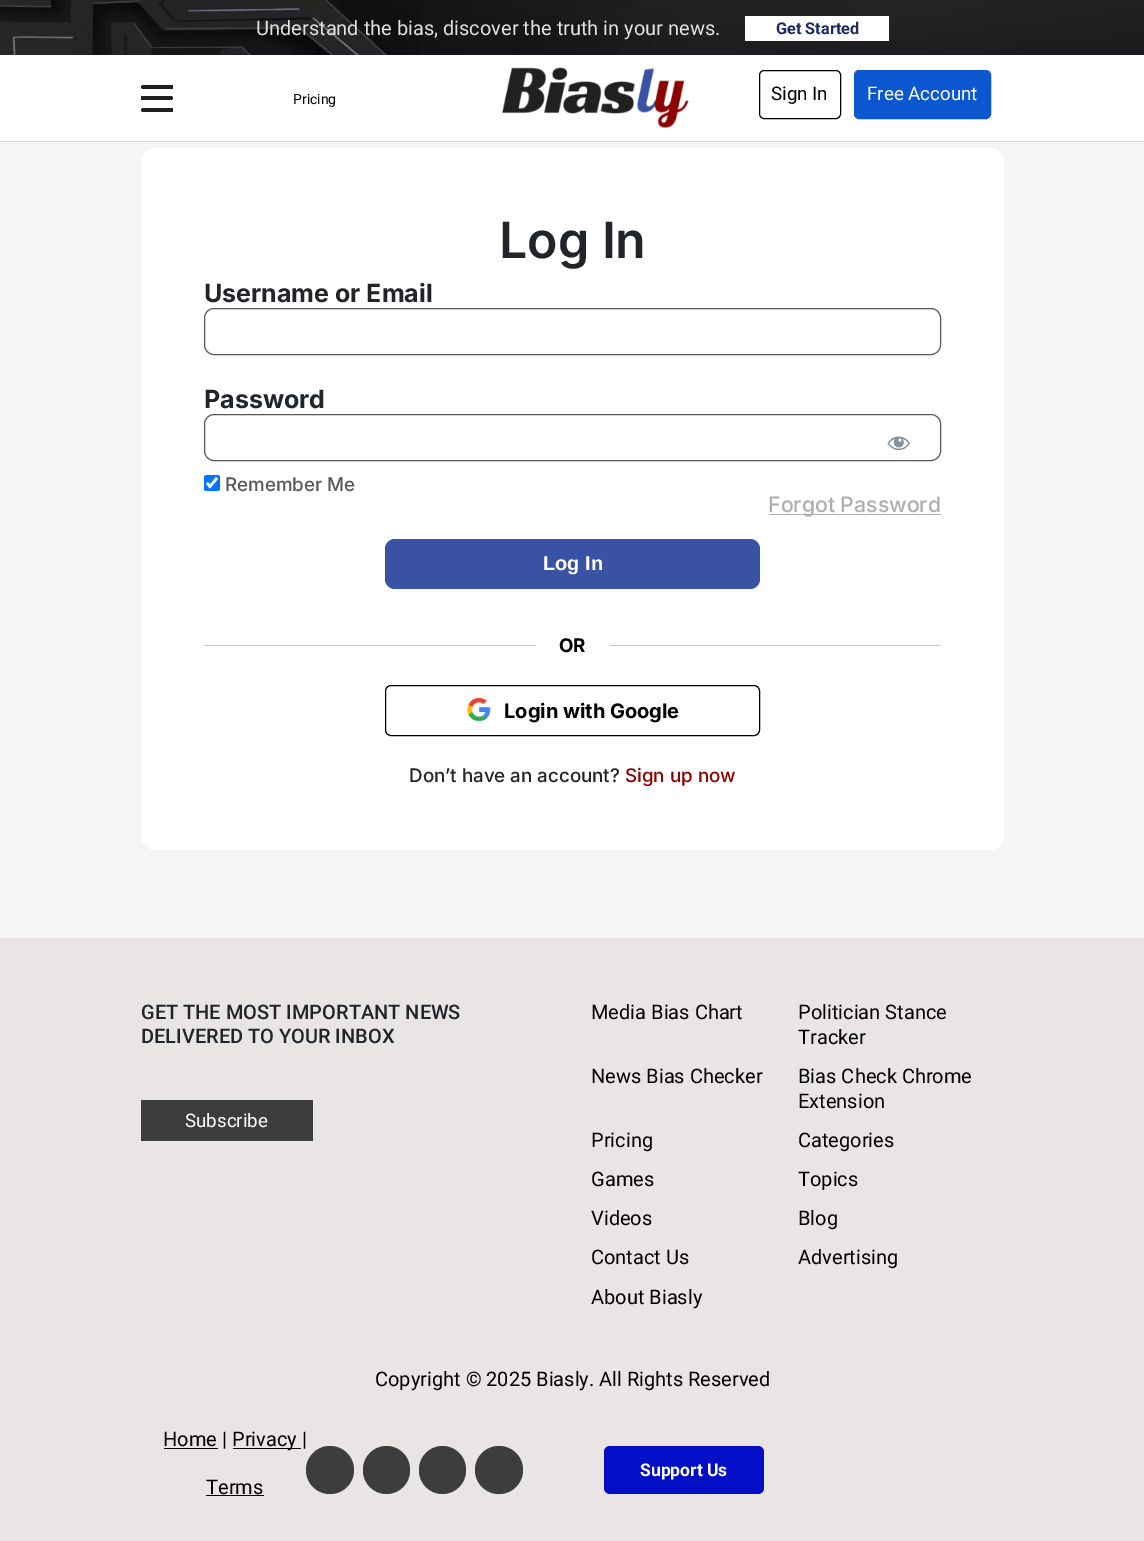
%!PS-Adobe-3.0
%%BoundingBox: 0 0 1144 1541
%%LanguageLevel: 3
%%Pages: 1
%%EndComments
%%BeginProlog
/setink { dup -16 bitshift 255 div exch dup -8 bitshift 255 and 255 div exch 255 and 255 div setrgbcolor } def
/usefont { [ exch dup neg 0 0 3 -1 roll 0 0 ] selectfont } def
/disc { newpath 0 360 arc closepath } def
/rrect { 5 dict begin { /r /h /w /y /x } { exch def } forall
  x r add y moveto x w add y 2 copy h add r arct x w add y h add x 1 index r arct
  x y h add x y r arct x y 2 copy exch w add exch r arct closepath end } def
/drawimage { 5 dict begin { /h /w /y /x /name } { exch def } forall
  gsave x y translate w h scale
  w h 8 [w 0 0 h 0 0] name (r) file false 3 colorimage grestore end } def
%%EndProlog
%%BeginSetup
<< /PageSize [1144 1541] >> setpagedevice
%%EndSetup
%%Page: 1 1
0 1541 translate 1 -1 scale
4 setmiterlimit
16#F5F5F5 setink
0 0 1144 1541 rectfill
(img1.raw) 0 0 1144 55 drawimage
/Roboto-Regular 20 usefont
16#E2E2E2 setink
256 35 moveto (Understand the bias, discover the truth in your news.) show
16#FFFFFF setink
745 16 144 25 rectfill
/Roboto-Bold 16.25 usefont
16#1E2964 setink
776 34 moveto (Get Started) show
16#FFFFFF setink
0 55 1144 88 rectfill
16#D8D8D8 setink
0 141 1144 1 rectfill
16#231F20 setink
143 85 moveto 173 85 lineto 173 89 lineto 143 89 lineto 142 89 141 88 141 87 curveto 141 86 142 85 143 85 curveto closepath fill
141 96 moveto 171 96 lineto 172 96 173 97 173 98 curveto 173 99 172 100 171 100 curveto 141 100 lineto closepath fill
143 108 moveto 173 108 lineto 173 112 lineto 143 112 lineto 142 112 141 111 141 110 curveto 141 109 142 108 143 108 curveto closepath fill
/Roboto-Regular 14 usefont
16#000000 setink
293 104 moveto (Pricing) show
(img2.raw) 502 67 187 62 drawimage
759.5 70.5 81 48 4.5 rrect stroke
/Roboto-Regular 18.75 usefont
771 100 moveto (Sign In) show
16#0B57D0 setink
854.5 70.5 136 48 4.5 rrect gsave fill grestore
stroke
16#FFFFFF setink
867 100 moveto (Free Account) show
141 148 863 702 14 rrect fill
/Inter-SemiBold 50 usefont
16#212529 setink
499 258 moveto (Log In) show
/Inter-Bold 25 usefont
204 302 moveto (Username or Email) show
16#595959 setink
204.5 308.5 736 46 9.5 rrect stroke
16#212529 setink
204 408 moveto (Password) show
16#595959 setink
204.5 414.5 736 46 9.5 rrect stroke
(img3.raw) 887 436 23 15 drawimage
16#0075FF setink
204 475 16 16 2.5 rrect fill
16#FFFFFF setink
2.6 setlinewidth
207 483 moveto 210 486.5 lineto 217 478 lineto stroke
/Inter-Medium 18.75 usefont
16#595959 setink
225 491 moveto (Remember Me) show
16#AEAEAE setink
769 514 172 1 rectfill
/Inter-Medium 21.25 usefont
768 512 moveto (Forgot Password) show
16#3952A3 setink
385 539 375 50 10 rrect fill
/LiberationSans-Bold 20 usefont
16#FFFFFF setink
543 570 moveto (Log In) show
16#C6C5C5 setink
610 645 331 1 rectfill
204 645 332 1 rectfill
/Inter-Bold 18.75 usefont
16#000000 setink
559 652 moveto (OR) show
1 setlinewidth
385.5 685.5 374 50 5.5 rrect stroke
(img4.raw) 467 697 24 25 drawimage
/Inter-Bold 20 usefont
504 718 moveto (Login with Google) show
/Inter-Medium 18.75 usefont
16#212529 setink
409 782 moveto (Don’t have an account?) show
16#8D0101 setink
625 782 moveto (Sign up now) show
16#EAE5E5 setink
0 938 1144 603 rectfill
/Roboto-Medium 20 usefont
16#212529 setink
141 1019 moveto (GET THE MOST IMPORTANT NEWS) show
141 1043 moveto (DELIVERED TO YOUR INBOX) show
16#3D3D3D setink
141 1100 172 41 rectfill
/Roboto-Regular 18.75 usefont
16#FFFFFF setink
185 1127 moveto (Subscribe) show
/Roboto-Regular 20 usefont
16#000000 setink
[
    [(Media Bias Chart) 591 1019]
    [(Politician Stance) 798 1019]
    [(Tracker) 798 1044]
    [(News Bias Checker) 591 1083]
    [(Bias Check Chrome) 798 1083]
    [(Extension) 798 1108]
    [(Pricing) 591 1147]
    [(Categories) 798 1147]
    [(Games) 591 1186]
    [(Topics) 798 1186]
    [(Videos) 591 1225]
    [(Blog) 798 1225]
    [(Contact Us) 591 1264]
    [(Advertising) 798 1264]
    [(About Biasly) 591 1304]
    [(Copyright © 2025 Biasly. All Rights Reserved) 375 1386]
] { aload pop moveto show } forall
164 1448 54 1 rectfill
163 1446 moveto (Home |) show
233 1448 68 1 rectfill
232 1446 moveto (Privacy |) show
206 1494 moveto (Terms) show
206 1495 58 1 rectfill
16#3D3D3D setink
330 1470 24 disc fill
363 1446 47 48 23.5 rrect fill
419 1446 47 48 23.5 rrect fill
499 1470 24 disc fill
16#030EC7 setink
604 1446 160 48 6 rrect fill
/Roboto-Bold 17.5 usefont
16#FFFFFF setink
640 1476 moveto (Support Us) show
showpage
%%EOF
